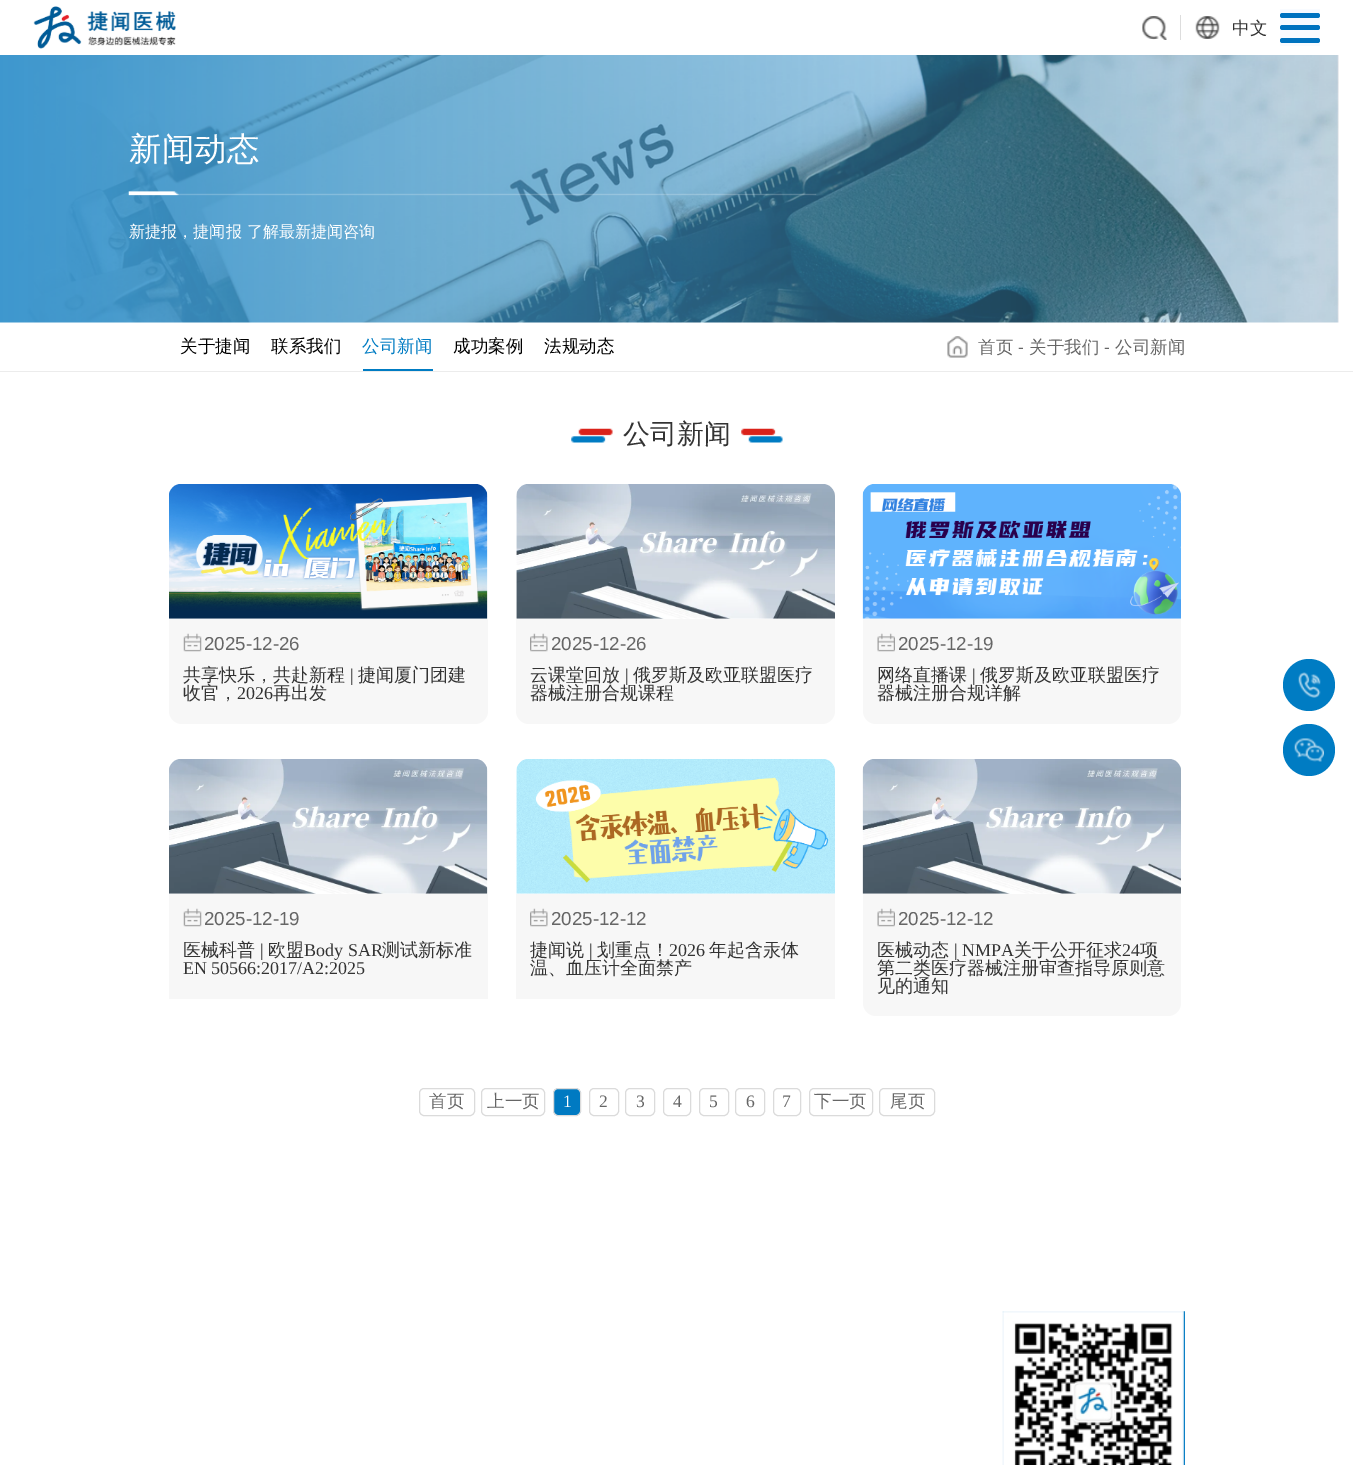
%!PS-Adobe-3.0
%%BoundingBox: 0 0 1353 1465
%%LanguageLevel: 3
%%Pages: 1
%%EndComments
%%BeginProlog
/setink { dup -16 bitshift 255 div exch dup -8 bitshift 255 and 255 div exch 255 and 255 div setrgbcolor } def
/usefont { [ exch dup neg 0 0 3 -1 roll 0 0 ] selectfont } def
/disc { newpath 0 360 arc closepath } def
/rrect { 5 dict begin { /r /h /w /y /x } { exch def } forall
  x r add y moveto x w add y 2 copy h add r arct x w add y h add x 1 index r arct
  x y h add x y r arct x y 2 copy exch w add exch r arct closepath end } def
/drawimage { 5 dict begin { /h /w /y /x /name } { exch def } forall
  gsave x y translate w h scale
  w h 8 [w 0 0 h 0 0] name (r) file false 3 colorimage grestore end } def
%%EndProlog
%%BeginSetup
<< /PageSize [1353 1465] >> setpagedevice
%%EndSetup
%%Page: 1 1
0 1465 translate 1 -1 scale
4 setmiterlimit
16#FFFFFF setink
0 0 1353 1465 rectfill
(img1.raw) 33 6 143 43 drawimage
(img2.raw) 1142 16 25 24 drawimage
16#DDDDDD setink
1180 15 1 25 rectfill
(img3.raw) 1195 16 25 23 drawimage
/WenQuanYiZenHei-Medium 17.5 usefont
16#333333 setink
1232 34 moveto (中文) show
16#F8FBFF setink
1280 9 40 37 rectfill
16#0073BF setink
1280 13 40 5 2.5 rrect fill
1280 25 40 5 2.5 rrect fill
1280 38 40 5 2.5 rrect fill
(img4.raw) 0 55 1339 268 drawimage
/WenQuanYiZenHei-Medium 32.5 usefont
16#FFFFFF setink
129 160 moveto (新闻动态) show
(img5.raw) 128 191 689 5 drawimage
/WenQuanYiZenHei-Medium 16.1 usefont
129 237 moveto (新捷报，捷闻报 了解最新捷闻咨询) show
16#ECECEC setink
0 371 1353 1 rectfill
/WenQuanYiZenHei-Medium 17.5 usefont
16#000000 setink
180 352 moveto (关于捷闻) show
271 352 moveto (联系我们) show
16#007CC3 setink
363 369 70 2 rectfill
362 352 moveto (公司新闻) show
16#000000 setink
453 352 moveto (成功案例) show
544 352 moveto (法规动态) show
(img6.raw) 947 336 21 22 drawimage
16#666666 setink
978 353 moveto (首页) show
/LiberationSans-Regular 17.5 usefont
1018 353 moveto (-) show
/WenQuanYiZenHei-Medium 17.5 usefont
1029 353 moveto (关于我们) show
/LiberationSans-Regular 17.5 usefont
1104 353 moveto (-) show
/WenQuanYiZenHei-Medium 17.5 usefont
1115 353 moveto (公司新闻) show
(img7.raw) 571 428 42 15 drawimage
/WenQuanYiZenHei-Medium 27 usefont
16#333333 setink
623 443 moveto (公司新闻) show
(img8.raw) 741 428 42 15 drawimage
(img9.raw) 169 484 319 135 drawimage
16#F7F7F7 setink
169 619 moveto 488 619 lineto 488 711 lineto 488 718 482 724 475 724 curveto 182 724 lineto 175 724 169 718 169 711 curveto closepath fill
(img10.raw) 183 633 19 19 drawimage
/LiberationSans-Regular 18.75 usefont
16#666666 setink
204 650 moveto (2025-12-26) show
/WenQuanYiZenHei-Medium 18 usefont
16#333333 setink
183 681 moveto (共享快乐，共赴新程) show
/LiberationSerif-Regular 18 usefont
350 681 moveto (|) show
/WenQuanYiZenHei-Medium 18 usefont
358 681 moveto (捷闻厦门团建) show
183 699 moveto (收官，) show
/LiberationSerif-Regular 18 usefont
237 699 moveto (2026) show
/WenQuanYiZenHei-Medium 18 usefont
273 699 moveto (再出发) show
(img11.raw) 516 484 319 135 drawimage
16#F7F7F7 setink
516 619 moveto 835 619 lineto 835 711 lineto 835 718 829 724 822 724 curveto 529 724 lineto 522 724 516 718 516 711 curveto closepath fill
(img12.raw) 530 633 18 19 drawimage
/LiberationSans-Regular 18.75 usefont
16#666666 setink
551 650 moveto (2025-12-26) show
/WenQuanYiZenHei-Medium 18 usefont
16#333333 setink
530 681 moveto (云课堂回放) show
/LiberationSerif-Regular 18 usefont
625 681 moveto (|) show
/WenQuanYiZenHei-Medium 18 usefont
633 681 moveto (俄罗斯及欧亚联盟医疗) show
530 699 moveto (器械注册合规课程) show
(img13.raw) 862 484 319 135 drawimage
16#F7F7F7 setink
863 619 moveto 1181 619 lineto 1181 711 lineto 1181 718 1175 724 1168 724 curveto 876 724 lineto 869 724 863 718 863 711 curveto closepath fill
(img14.raw) 877 633 18 19 drawimage
/LiberationSans-Regular 18.75 usefont
16#666666 setink
898 650 moveto (2025-12-19) show
/WenQuanYiZenHei-Medium 18 usefont
16#333333 setink
877 681 moveto (网络直播课) show
/LiberationSerif-Regular 18 usefont
972 681 moveto (|) show
/WenQuanYiZenHei-Medium 18 usefont
980 681 moveto (俄罗斯及欧亚联盟医疗) show
877 699 moveto (器械注册合规详解) show
(img15.raw) 169 759 319 135 drawimage
16#F7F7F7 setink
169 894 319 105 rectfill
(img10.raw) 183 908 19 19 drawimage
/LiberationSans-Regular 18.75 usefont
16#666666 setink
204 925 moveto (2025-12-19) show
/WenQuanYiZenHei-Medium 18 usefont
16#333333 setink
183 956 moveto (医械科普) show
/LiberationSerif-Regular 18 usefont
260 956 moveto (|) show
/WenQuanYiZenHei-Medium 18 usefont
268 956 moveto (欧盟) show
/LiberationSerif-Regular 18 usefont
304 956 moveto (Body SAR) show
/WenQuanYiZenHei-Medium 18 usefont
382 956 moveto (测试新标准) show
/LiberationSerif-Regular 18 usefont
183 974 moveto (EN 50566:2017/A2:2025) show
(img16.raw) 516 759 319 135 drawimage
16#F7F7F7 setink
516 894 319 105 rectfill
(img12.raw) 530 908 18 19 drawimage
/LiberationSans-Regular 18.75 usefont
16#666666 setink
551 925 moveto (2025-12-12) show
/WenQuanYiZenHei-Medium 18 usefont
16#333333 setink
530 956 moveto (捷闻说) show
/LiberationSerif-Regular 18 usefont
589 956 moveto (|) show
/WenQuanYiZenHei-Medium 18 usefont
597 956 moveto (划重点！) show
/LiberationSerif-Regular 18 usefont
669 956 moveto (2026) show
/WenQuanYiZenHei-Medium 18 usefont
709 956 moveto (年起含汞体) show
530 974 moveto (温、血压计全面禁产) show
(img17.raw) 862 759 319 135 drawimage
16#F7F7F7 setink
863 894 moveto 1181 894 lineto 1181 1003 lineto 1181 1010 1175 1016 1168 1016 curveto 876 1016 lineto 869 1016 863 1010 863 1003 curveto closepath fill
(img14.raw) 877 908 18 19 drawimage
/LiberationSans-Regular 18.75 usefont
16#666666 setink
898 925 moveto (2025-12-12) show
/WenQuanYiZenHei-Medium 18 usefont
16#333333 setink
877 956 moveto (医械动态) show
/LiberationSerif-Regular 18 usefont
954 956 moveto (| NMPA) show
/WenQuanYiZenHei-Medium 18 usefont
1014 956 moveto (关于公开征求) show
/LiberationSerif-Regular 18 usefont
1122 956 moveto (24) show
/WenQuanYiZenHei-Medium 18 usefont
[
    [(项) 1140 956]
    [(第二类医疗器械注册审查指导原则意) 877 974]
    [(见的通知) 877 992]
] { aload pop moveto show } forall
16#DBDBDB setink
419.5 1088.5 55 27 4.5 rrect stroke
/WenQuanYiZenHei-Medium 17.5 usefont
16#666666 setink
429 1107 moveto (首页) show
16#DBDBDB setink
481.5 1088.5 63 27 4.5 rrect stroke
16#666666 setink
487 1107 moveto (上一页) show
16#007AC2 setink
553.5 1088.5 27 27 4.5 rrect gsave fill grestore
16#DBDBDB setink
stroke
/LiberationSerif-Regular 17.5 usefont
16#FFFFFF setink
563 1107 moveto (1) show
16#DBDBDB setink
589.5 1088.5 29 27 4.5 rrect stroke
16#666666 setink
599 1107 moveto (2) show
16#DBDBDB setink
625.5 1088.5 29 27 4.5 rrect stroke
16#666666 setink
636 1107 moveto (3) show
16#DBDBDB setink
663.5 1088.5 27 27 4.5 rrect stroke
16#666666 setink
673 1107 moveto (4) show
16#DBDBDB setink
699.5 1088.5 29 27 4.5 rrect stroke
16#666666 setink
709 1107 moveto (5) show
16#DBDBDB setink
735.5 1088.5 29 27 4.5 rrect stroke
16#666666 setink
746 1107 moveto (6) show
16#DBDBDB setink
773.5 1088.5 27 27 4.5 rrect stroke
16#666666 setink
782 1107 moveto (7) show
16#DBDBDB setink
809.5 1088.5 63 27 4.5 rrect stroke
/WenQuanYiZenHei-Medium 17.5 usefont
16#666666 setink
814 1107 moveto (下一页) show
16#DBDBDB setink
879.5 1088.5 55 27 4.5 rrect stroke
16#666666 setink
890 1107 moveto (尾页) show
16#007CC3 setink
1309 685 26 disc fill
(img18.raw) 1298 672 23 26 drawimage
1309 750 26 disc fill
(img19.raw) 1294 738 30 24 drawimage
(img20.raw) 1002 1311 183 154 drawimage
showpage
%%EOF
